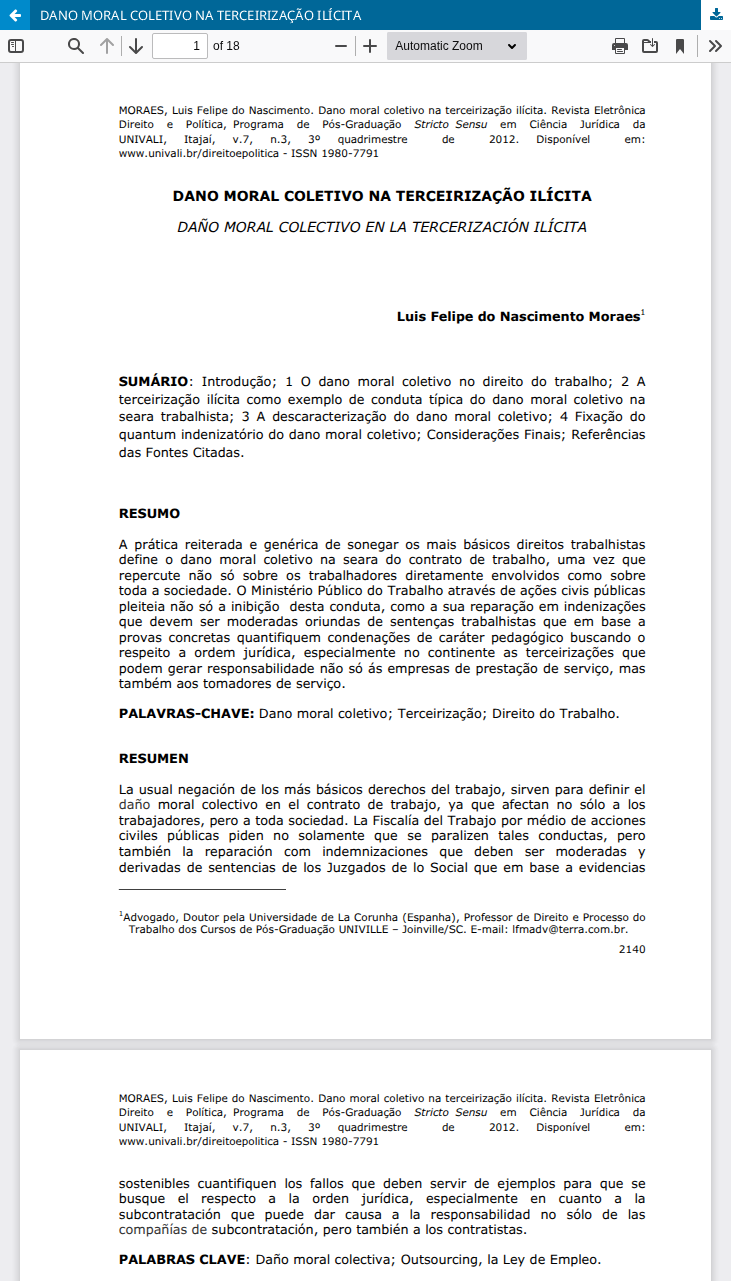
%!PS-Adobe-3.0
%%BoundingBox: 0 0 731 1281
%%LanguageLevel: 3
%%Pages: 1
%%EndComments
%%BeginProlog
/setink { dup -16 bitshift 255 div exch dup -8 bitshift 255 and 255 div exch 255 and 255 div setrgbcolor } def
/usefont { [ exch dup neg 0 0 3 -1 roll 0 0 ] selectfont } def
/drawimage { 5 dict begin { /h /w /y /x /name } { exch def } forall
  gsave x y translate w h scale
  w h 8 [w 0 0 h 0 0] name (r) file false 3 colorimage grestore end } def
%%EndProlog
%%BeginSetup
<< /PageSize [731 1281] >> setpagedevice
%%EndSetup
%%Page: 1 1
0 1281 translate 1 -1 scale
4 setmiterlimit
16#FFFFFF setink
0 0 731 1281 rectfill
16#006798 setink
30 0 671 30 rectfill
16#008ACB setink
0 0 30 30 rectfill
(img1.raw) 9 9 12 13 drawimage
/NotoSans-Regular 13 usefont
16#FFFFFF setink
40 20 moveto (DANO MORAL COLETIVO NA TERCEIRIZAÇÃO ILÍCITA) show
(img2.raw) 710 8 13 12 drawimage
(img3.raw) 0 30 731 1251 drawimage
showpage
%%EOF
